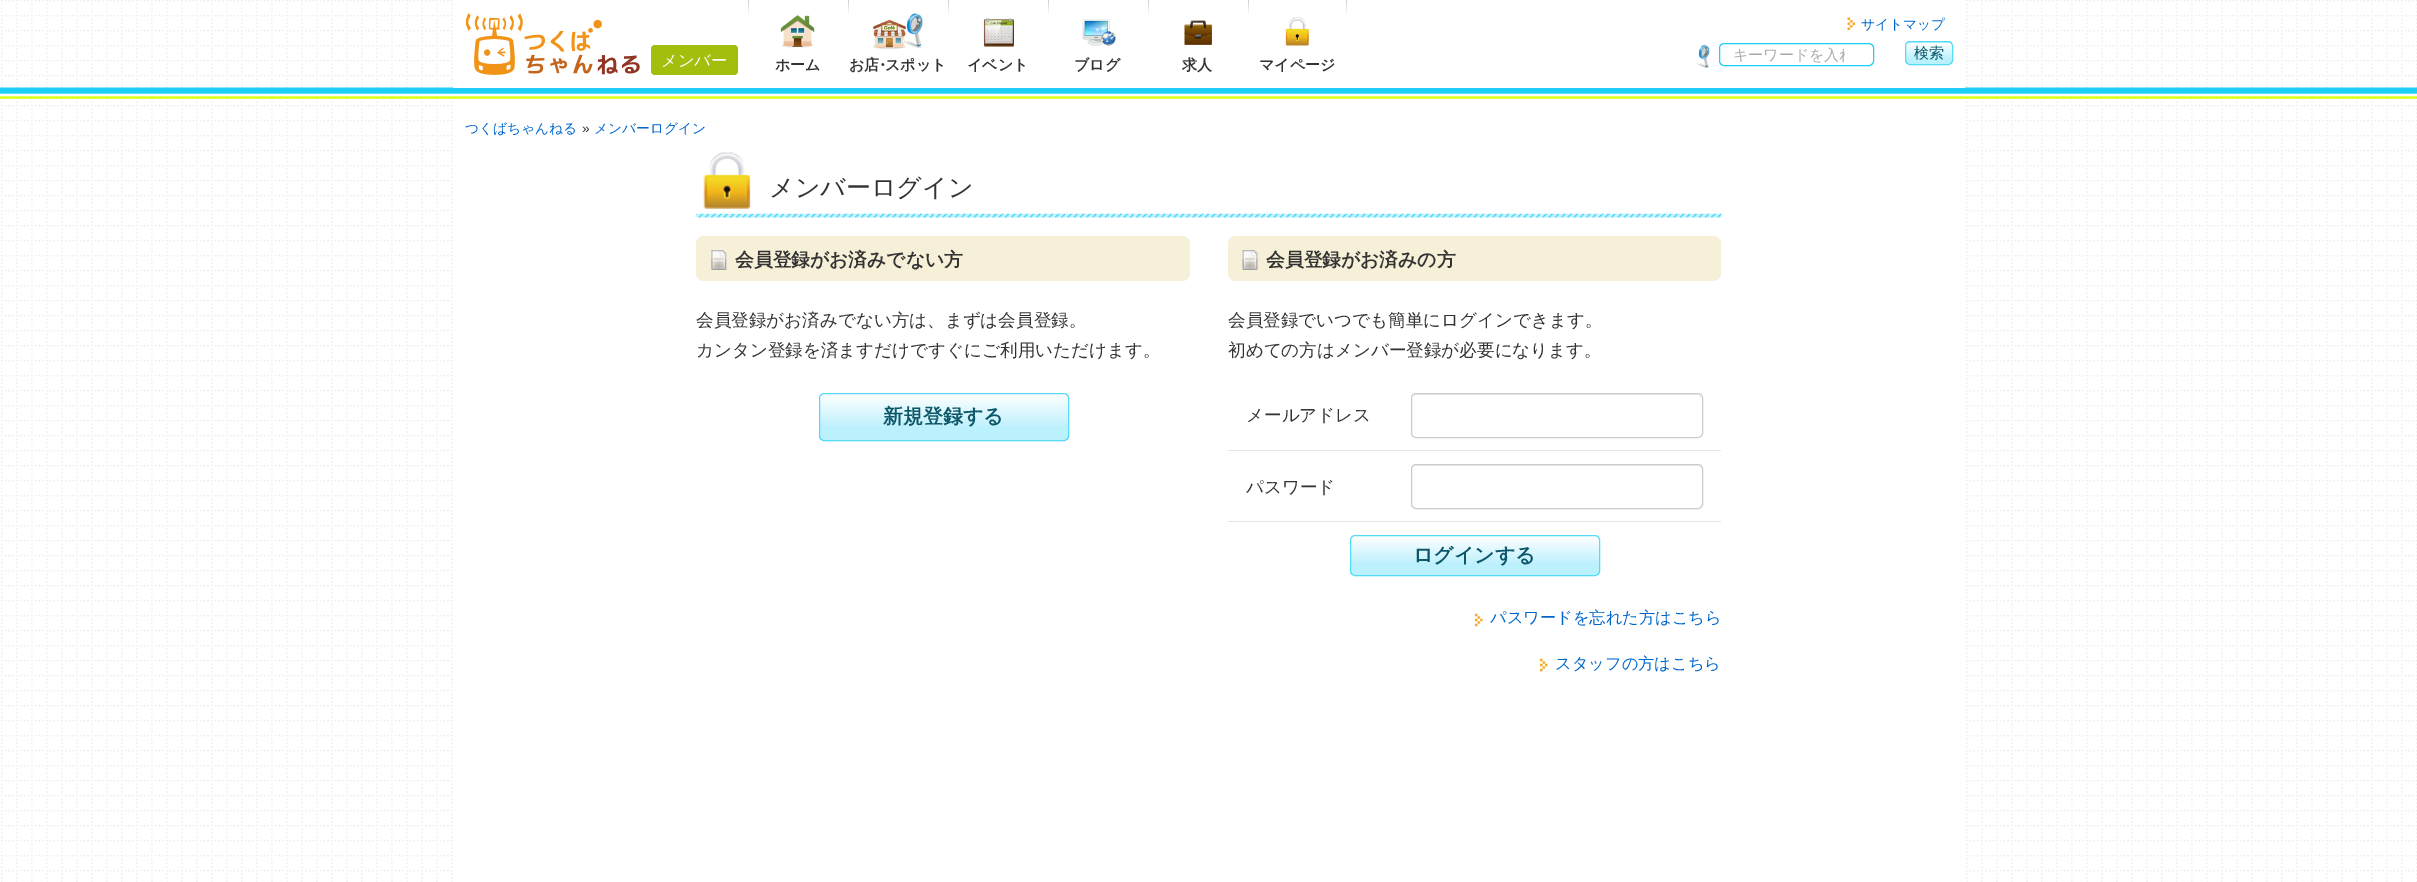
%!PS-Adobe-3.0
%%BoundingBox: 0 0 2417 882
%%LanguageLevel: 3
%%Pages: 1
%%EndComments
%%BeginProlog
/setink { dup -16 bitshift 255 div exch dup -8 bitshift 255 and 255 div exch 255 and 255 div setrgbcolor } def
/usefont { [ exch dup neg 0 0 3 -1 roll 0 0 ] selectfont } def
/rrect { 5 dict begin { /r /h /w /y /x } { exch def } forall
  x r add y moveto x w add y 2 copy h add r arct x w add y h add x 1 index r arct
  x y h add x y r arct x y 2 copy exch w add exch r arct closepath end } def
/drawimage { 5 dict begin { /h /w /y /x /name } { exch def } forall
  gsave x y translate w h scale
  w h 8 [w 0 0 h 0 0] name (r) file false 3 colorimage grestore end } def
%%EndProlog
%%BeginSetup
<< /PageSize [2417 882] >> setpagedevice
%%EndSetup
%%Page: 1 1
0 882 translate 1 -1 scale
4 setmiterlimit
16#FFFFFF setink
0 0 2417 882 rectfill
(img1.raw) 1 0 2416 882 drawimage
(img2.raw) 0 87 2417 12 drawimage
453 0 1512 88 rectfill
(img3.raw) 1847 17 8 13 drawimage
/WenQuanYiZenHei-Medium 13.75 usefont
16#0066CC setink
1861 29 moveto (サイトマップ) show
gsave 748 0 moveto 749 0 lineto 749 15 lineto 748 15 lineto closepath clip newpath
<< /ShadingType 2 /ColorSpace /DeviceRGB /Coords [748 0 748 80] /Extend [true true] /Function << /FunctionType 3 /Domain [0 1] /Functions [<< /FunctionType 2 /Domain [0 1] /C0 [0.804 0.804 0.804] /C1 [1 1 1] /N 1 >> << /FunctionType 2 /Domain [0 1] /C0 [1 1 1] /C1 [1 1 1] /N 1 >>] /Bounds [0.2] /Encode [0 1 0 1] >> >> shfill grestore
(img4.raw) 780 15 35 33 drawimage
/WenQuanYiZenHei-Bold 15 usefont
16#333333 setink
775 70 moveto (ホーム) show
gsave 848 0 moveto 849 0 lineto 849 15 lineto 848 15 lineto closepath clip newpath
<< /ShadingType 2 /ColorSpace /DeviceRGB /Coords [848 0 848 80] /Extend [true true] /Function << /FunctionType 3 /Domain [0 1] /Functions [<< /FunctionType 2 /Domain [0 1] /C0 [0.804 0.804 0.804] /C1 [1 1 1] /N 1 >> << /FunctionType 2 /Domain [0 1] /C0 [1 1 1] /C1 [1 1 1] /N 1 >>] /Bounds [0.2] /Encode [0 1 0 1] >> >> shfill grestore
(img5.raw) 873 13 50 36 drawimage
[
    [(お店) 849 70]
    [(・) 875 70]
    [(スポット) 885 70]
] { aload pop moveto show } forall
gsave 948 0 moveto 949 0 lineto 949 15 lineto 948 15 lineto closepath clip newpath
<< /ShadingType 2 /ColorSpace /DeviceRGB /Coords [948 0 948 80] /Extend [true true] /Function << /FunctionType 3 /Domain [0 1] /Functions [<< /FunctionType 2 /Domain [0 1] /C0 [0.804 0.804 0.804] /C1 [1 1 1] /N 1 >> << /FunctionType 2 /Domain [0 1] /C0 [1 1 1] /C1 [1 1 1] /N 1 >>] /Bounds [0.2] /Encode [0 1 0 1] >> >> shfill grestore
(img6.raw) 983 18 31 29 drawimage
967 70 moveto (イベント) show
gsave 1048 0 moveto 1049 0 lineto 1049 15 lineto 1048 15 lineto closepath clip newpath
<< /ShadingType 2 /ColorSpace /DeviceRGB /Coords [1048 0 1048 80] /Extend [true true] /Function << /FunctionType 3 /Domain [0 1] /Functions [<< /FunctionType 2 /Domain [0 1] /C0 [0.804 0.804 0.804] /C1 [1 1 1] /N 1 >> << /FunctionType 2 /Domain [0 1] /C0 [1 1 1] /C1 [1 1 1] /N 1 >>] /Bounds [0.2] /Encode [0 1 0 1] >> >> shfill grestore
(img7.raw) 1082 19 36 27 drawimage
1074 70 moveto (ブログ) show
gsave 1148 0 moveto 1149 0 lineto 1149 15 lineto 1148 15 lineto closepath clip newpath
<< /ShadingType 2 /ColorSpace /DeviceRGB /Coords [1148 0 1148 80] /Extend [true true] /Function << /FunctionType 3 /Domain [0 1] /Functions [<< /FunctionType 2 /Domain [0 1] /C0 [0.804 0.804 0.804] /C1 [1 1 1] /N 1 >> << /FunctionType 2 /Domain [0 1] /C0 [1 1 1] /C1 [1 1 1] /N 1 >>] /Bounds [0.2] /Encode [0 1 0 1] >> >> shfill grestore
(img8.raw) 1184 20 28 25 drawimage
1182 70 moveto (求人) show
gsave 1248 0 moveto 1249 0 lineto 1249 15 lineto 1248 15 lineto closepath clip newpath
<< /ShadingType 2 /ColorSpace /DeviceRGB /Coords [1248 0 1248 80] /Extend [true true] /Function << /FunctionType 3 /Domain [0 1] /Functions [<< /FunctionType 2 /Domain [0 1] /C0 [0.804 0.804 0.804] /C1 [1 1 1] /N 1 >> << /FunctionType 2 /Domain [0 1] /C0 [1 1 1] /C1 [1 1 1] /N 1 >>] /Bounds [0.2] /Encode [0 1 0 1] >> >> shfill grestore
gsave 1346 0 moveto 1347 0 lineto 1347 15 lineto 1346 15 lineto closepath clip newpath
<< /ShadingType 2 /ColorSpace /DeviceRGB /Coords [1347 0 1347 80] /Extend [true true] /Function << /FunctionType 3 /Domain [0 1] /Functions [<< /FunctionType 2 /Domain [0 1] /C0 [0.804 0.804 0.804] /C1 [1 1 1] /N 1 >> << /FunctionType 2 /Domain [0 1] /C0 [1 1 1] /C1 [1 1 1] /N 1 >>] /Bounds [0.2] /Encode [0 1 0 1] >> >> shfill grestore
(img9.raw) 1285 17 24 29 drawimage
1259 70 moveto (マイページ) show
(img10.raw) 465 13 175 62 drawimage
16#A3BE0C setink
651 45 87 30 4 rrect fill
/WenQuanYiZenHei-Medium 16.25 usefont
16#FFFFFF setink
661 66 moveto (メンバー) show
(img11.raw) 1697 45 13 23 drawimage
16#1DCEF7 setink
1719.5 43.5 154 22 4.5 rrect stroke
gsave
1733 45 112 21 rectclip
/WenQuanYiZenHei-Medium 15 usefont
16#AAAAAA setink
1733 60 moveto (キーワードを入れ) show
grestore
gsave
1905 41 48 24 5 rrect clip newpath
gsave 1905 41 moveto 1953 41 lineto 1953 43 lineto 1905 43 lineto closepath clip newpath
<< /ShadingType 2 /ColorSpace /DeviceRGB /Coords [1929 21 1929 43] /Extend [true true] /Function << /FunctionType 3 /Domain [0 1] /Functions [<< /FunctionType 2 /Domain [0 1] /C0 [1 1 1] /C1 [0.733 0.941 0.992] /N 1 >> << /FunctionType 2 /Domain [0 1] /C0 [0.733 0.941 0.992] /C1 [0.733 0.941 0.992] /N 1 >>] /Bounds [0.75] /Encode [0 1 0 1] >> >> shfill grestore
gsave 1905 43 moveto 1953 43 lineto 1953 64 lineto 1905 64 lineto closepath clip newpath
<< /ShadingType 2 /ColorSpace /DeviceRGB /Coords [1929 43 1929 64] /Extend [true true] /Function << /FunctionType 3 /Domain [0 1] /Functions [<< /FunctionType 2 /Domain [0 1] /C0 [1 1 1] /C1 [0.733 0.941 0.992] /N 1 >> << /FunctionType 2 /Domain [0 1] /C0 [0.733 0.941 0.992] /C1 [0.733 0.941 0.992] /N 1 >>] /Bounds [0.75] /Encode [0 1 0 1] >> >> shfill grestore
grestore
16#55DAF9 setink
1905.5 41.5 47 23 4.5 rrect stroke
/WenQuanYiZenHei-Medium 15 usefont
16#0C586A setink
1914 58 moveto (検索) show
16#FFFFFF setink
455 101 1509 781 rectfill
/WenQuanYiZenHei-Medium 13.75 usefont
16#0066CC setink
465 133 moveto (つくばちゃんねる) show
/LiberationSans-Regular 13.75 usefont
16#333333 setink
582 133 moveto (») show
/WenQuanYiZenHei-Medium 13.75 usefont
16#0066CC setink
594 133 moveto (メンバーログイン) show
(img12.raw) 696 213 1026 5 drawimage
(img13.raw) 703 152 48 57 drawimage
/WenQuanYiZenHei-Medium 25 usefont
16#333333 setink
769 196 moveto (メンバーログイン) show
16#F5F0D7 setink
696 236 494 45 8 rrect fill
(img14.raw) 711 250 16 20 drawimage
/WenQuanYiZenHei-Bold 18.75 usefont
16#333333 setink
735 266 moveto (会員登録がお済みでない方) show
/WenQuanYiZenHei-Medium 17.55 usefont
696 326 moveto (会員登録がお済みでない方は、まずは会員登録。) show
696 356 moveto (カンタン登録を済ますだけですぐにご利用いただけます。) show
gsave
819 393 250 48 5 rrect clip newpath
gsave 819 394 moveto 1069 394 lineto 1069 440 lineto 819 440 lineto closepath clip newpath
<< /ShadingType 2 /ColorSpace /DeviceRGB /Coords [944 394 944 440] /Extend [true true] /Function << /FunctionType 3 /Domain [0 1] /Functions [<< /FunctionType 2 /Domain [0 1] /C0 [1 1 1] /C1 [0.733 0.941 0.992] /N 1 >> << /FunctionType 2 /Domain [0 1] /C0 [0.733 0.941 0.992] /C1 [0.733 0.941 0.992] /N 1 >>] /Bounds [0.75] /Encode [0 1 0 1] >> >> shfill grestore
grestore
16#55DAF9 setink
819.5 393.5 249 47 4.5 rrect stroke
/WenQuanYiZenHei-Bold 20 usefont
16#0C586A setink
883 423 moveto (新規登録する) show
16#F5F0D7 setink
1228 236 493 45 8 rrect fill
(img15.raw) 1242 250 16 20 drawimage
/WenQuanYiZenHei-Bold 18.75 usefont
16#333333 setink
1266 266 moveto (会員登録がお済みの方) show
/WenQuanYiZenHei-Medium 17.55 usefont
1228 326 moveto (会員登録でいつでも簡単にログインできます。) show
1228 356 moveto (初めての方はメンバー登録が必要になります。) show
16#E6E6E6 setink
1228 450 493 1 rectfill
16#333333 setink
1246 421 moveto (メールアドレス) show
16#ECECEC setink
1416 395 moveto 1698 395 lineto 1700 395 1701 397 1701 399 curveto 1701 398 lineto 1701 396 1699 394 1697 394 curveto 1417 394 lineto 1416 394 1414 395 1414 396 curveto closepath fill
16#CCCCCC setink
1411.5 393.5 291 44 4.5 rrect stroke
16#E6E6E6 setink
1228 521 493 1 rectfill
16#333333 setink
1246 493 moveto (パスワード) show
16#ECECEC setink
1416 466 moveto 1698 466 lineto 1700 466 1701 468 1701 470 curveto 1701 469 lineto 1701 467 1699 465 1697 465 curveto 1417 465 lineto 1416 465 1414 466 1414 467 curveto closepath fill
16#CCCCCC setink
1411.5 464.5 291 44 4.5 rrect stroke
gsave
1350 535 250 41 5 rrect clip newpath
gsave 1350 536 moveto 1600 536 lineto 1600 575 lineto 1350 575 lineto closepath clip newpath
<< /ShadingType 2 /ColorSpace /DeviceRGB /Coords [1475 536 1475 575] /Extend [true true] /Function << /FunctionType 3 /Domain [0 1] /Functions [<< /FunctionType 2 /Domain [0 1] /C0 [1 1 1] /C1 [0.733 0.941 0.992] /N 1 >> << /FunctionType 2 /Domain [0 1] /C0 [0.733 0.941 0.992] /C1 [0.733 0.941 0.992] /N 1 >>] /Bounds [0.75] /Encode [0 1 0 1] >> >> shfill grestore
grestore
16#55DAF9 setink
1350.5 535.5 249 40 4.5 rrect stroke
/WenQuanYiZenHei-Bold 20 usefont
16#0C586A setink
1413 562 moveto (ログインする) show
(img16.raw) 1475 613 8 14 drawimage
/WenQuanYiZenHei-Medium 16.25 usefont
16#0066CC setink
1490 623 moveto (パスワードを忘れた方はこちら) show
(img17.raw) 1540 658 8 14 drawimage
1555 669 moveto (スタッフの方はこちら) show
showpage
%%EOF
